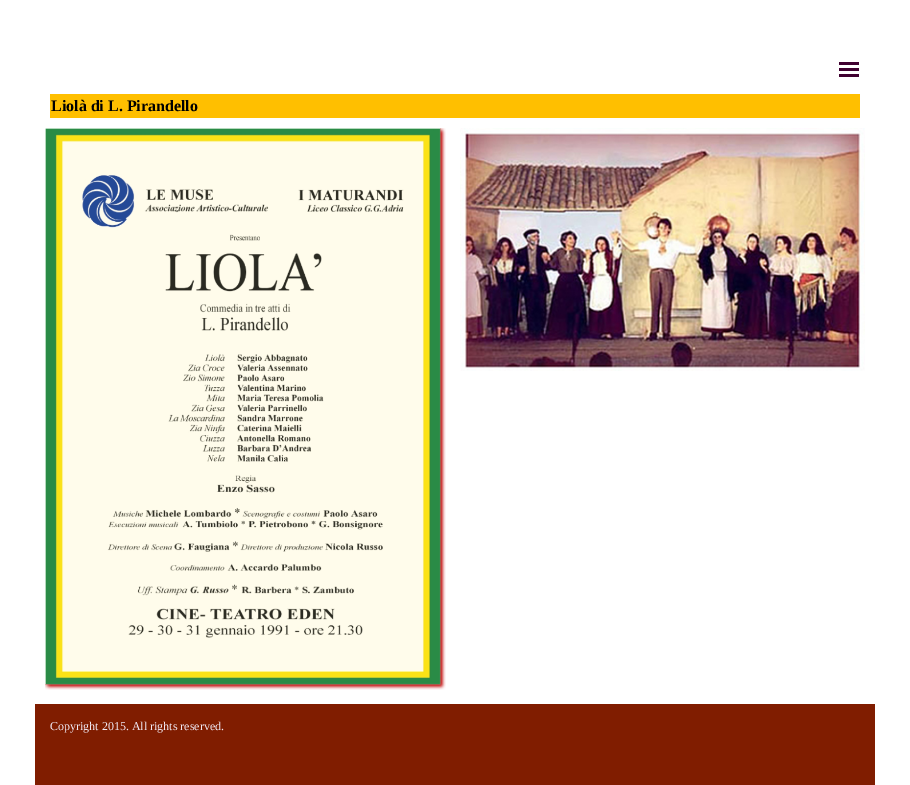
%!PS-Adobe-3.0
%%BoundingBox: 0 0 910 785
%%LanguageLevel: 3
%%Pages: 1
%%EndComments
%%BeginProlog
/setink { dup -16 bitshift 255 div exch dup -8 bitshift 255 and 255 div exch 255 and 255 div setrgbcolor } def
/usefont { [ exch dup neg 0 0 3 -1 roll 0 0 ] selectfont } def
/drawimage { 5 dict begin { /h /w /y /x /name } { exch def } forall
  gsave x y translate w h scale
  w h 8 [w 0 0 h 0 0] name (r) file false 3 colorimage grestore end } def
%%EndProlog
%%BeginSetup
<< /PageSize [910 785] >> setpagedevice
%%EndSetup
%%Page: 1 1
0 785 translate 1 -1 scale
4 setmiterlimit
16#FFFFFF setink
0 0 910 785 rectfill
[
    [839 62 20 3 16#400030]
    [839 68 20 3 16#400030]
    [839 74 20 3 16#400030]
    [50 94 810 24 16#FFBF00]
] { aload pop setink rectfill } forall
/LiberationSerif-Bold 16 usefont
16#000000 setink
51 111 moveto (Liolà di L. Pirandello) show
(img1.raw) 45 128 401 562 drawimage
(img2.raw) 460 128 405 243 drawimage
16#801D00 setink
35 704 840 81 rectfill
/LiberationSerif-Regular 12 usefont
16#F1EAF5 setink
50 730 moveto (Copyright 2015. All rights reserved.) show
showpage
%%EOF
